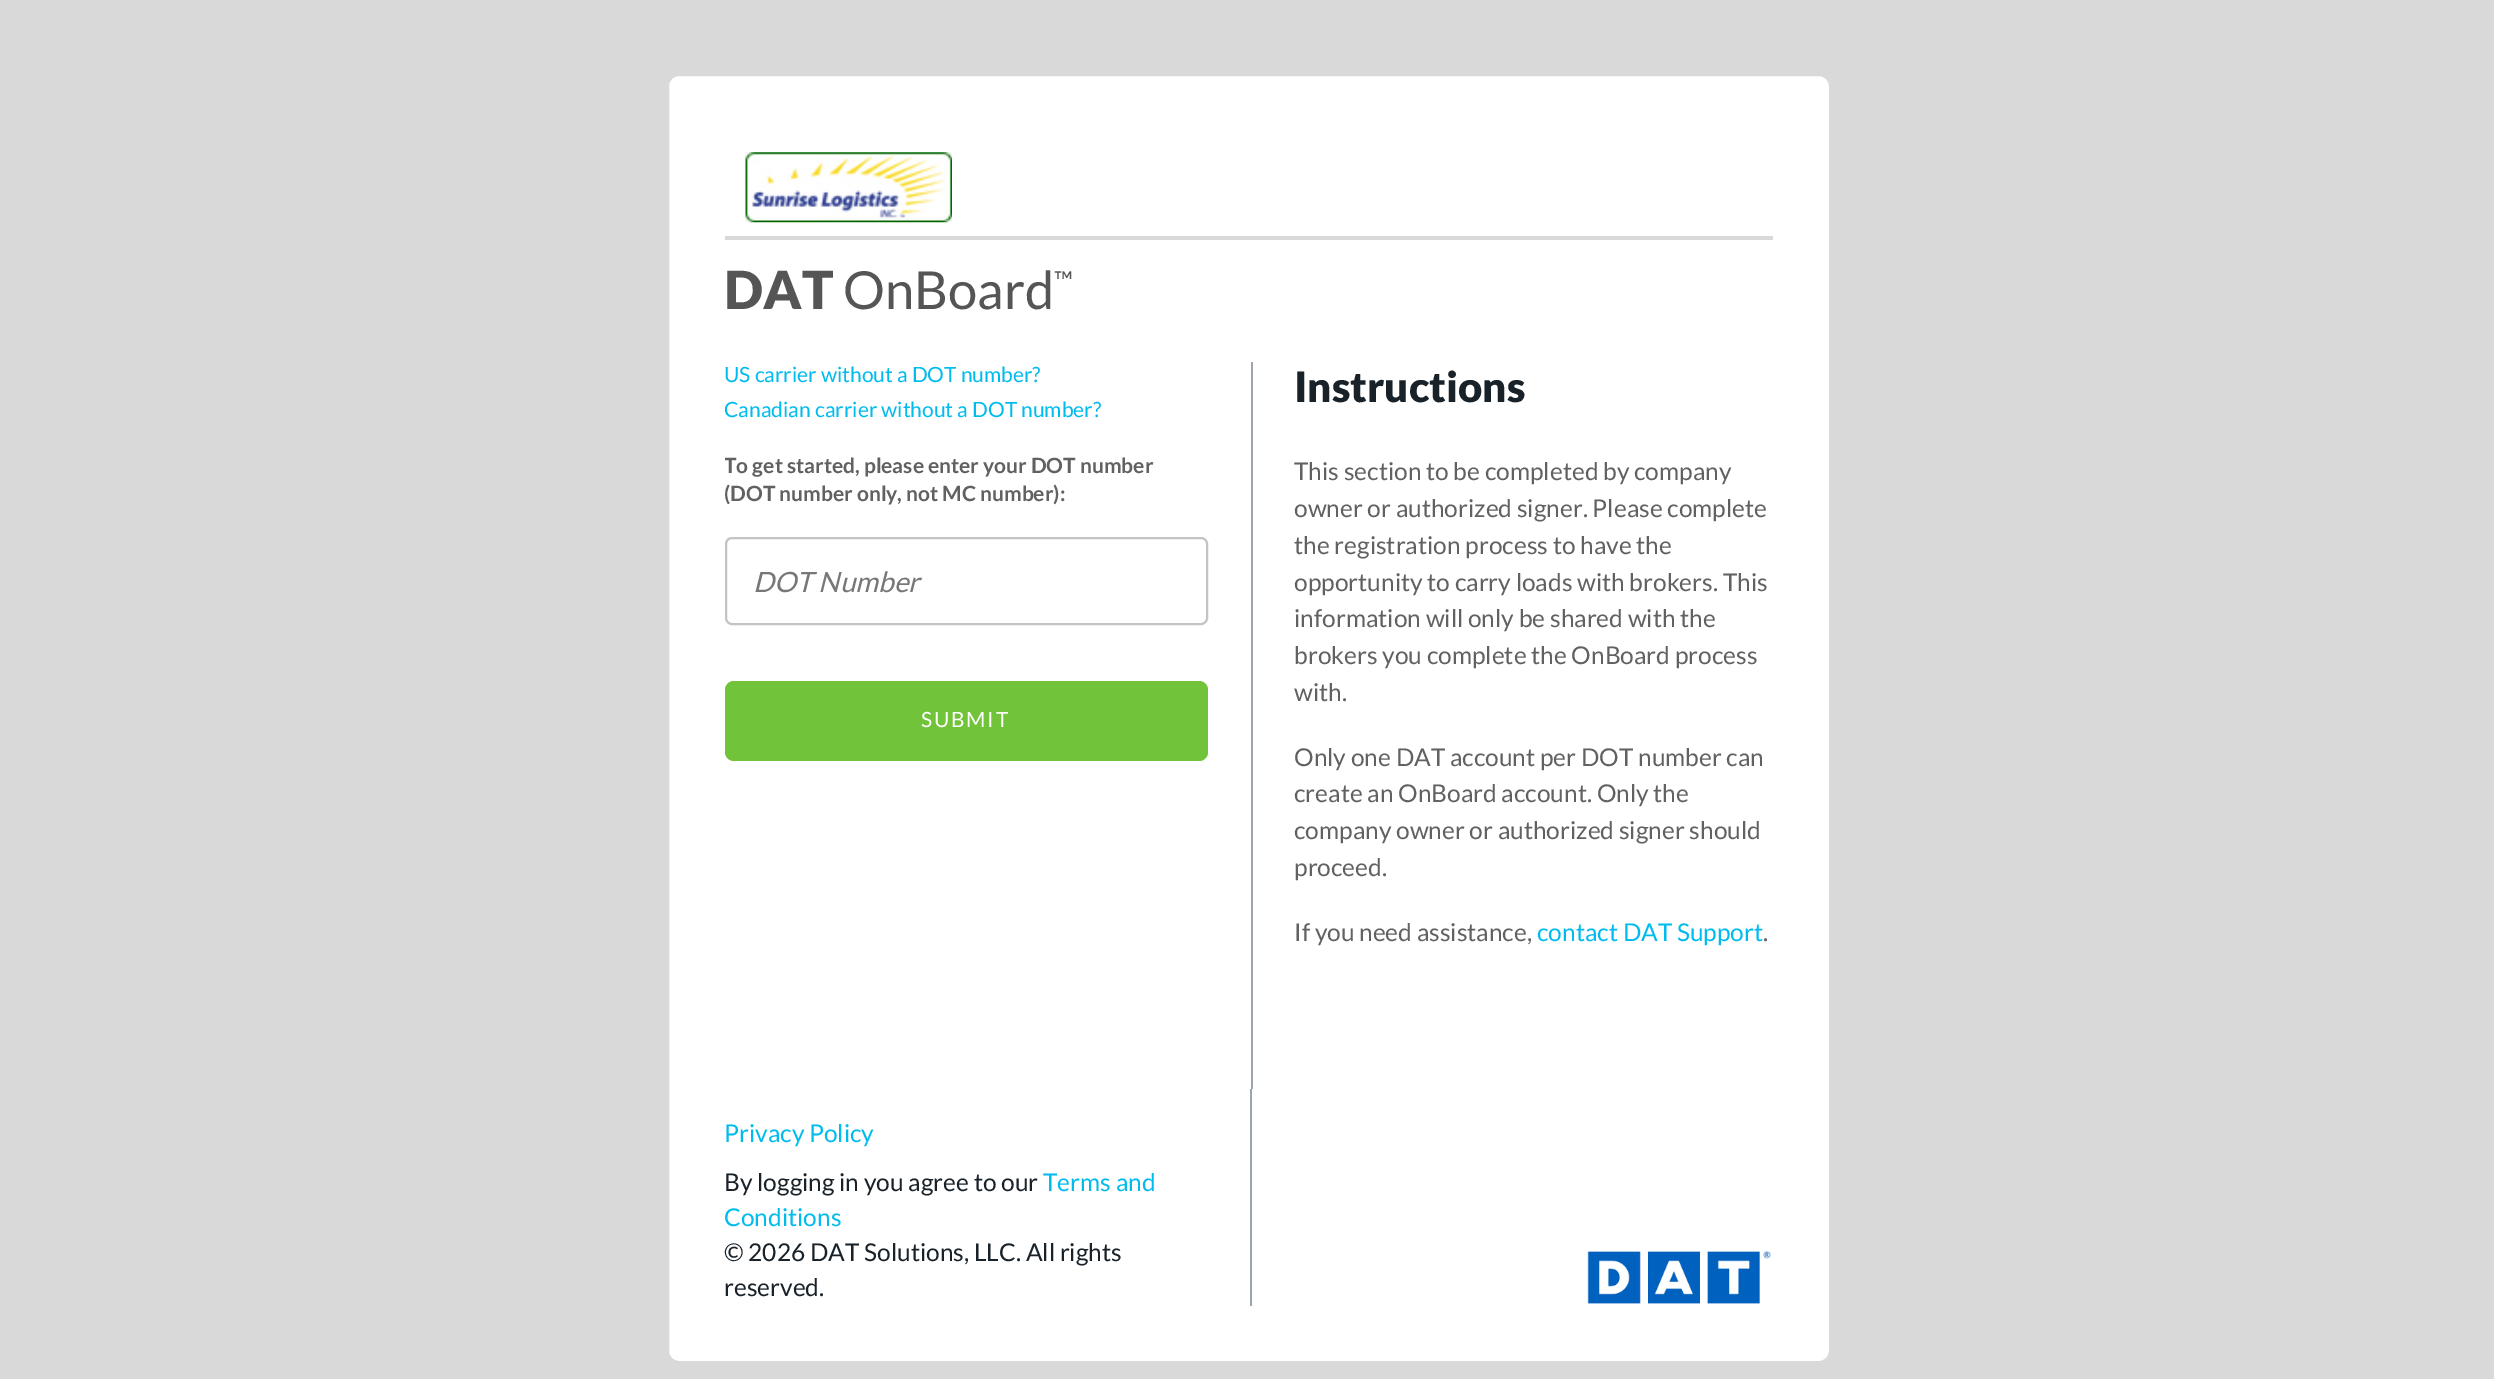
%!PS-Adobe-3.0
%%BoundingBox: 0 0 2494 1379
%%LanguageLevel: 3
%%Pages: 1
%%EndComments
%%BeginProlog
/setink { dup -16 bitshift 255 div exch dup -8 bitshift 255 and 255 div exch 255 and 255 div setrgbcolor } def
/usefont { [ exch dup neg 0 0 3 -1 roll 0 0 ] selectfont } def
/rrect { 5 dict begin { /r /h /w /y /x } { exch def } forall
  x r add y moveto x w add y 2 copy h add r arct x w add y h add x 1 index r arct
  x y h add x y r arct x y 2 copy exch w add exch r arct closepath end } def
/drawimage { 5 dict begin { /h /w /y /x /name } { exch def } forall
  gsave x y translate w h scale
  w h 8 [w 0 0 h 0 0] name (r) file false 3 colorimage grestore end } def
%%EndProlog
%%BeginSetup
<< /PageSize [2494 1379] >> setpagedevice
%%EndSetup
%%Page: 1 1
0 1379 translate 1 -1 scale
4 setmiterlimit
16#D9D9D9 setink
0 0 2494 1379 rectfill
16#FFFFFF setink
668 75 1162 1287 11 rrect gsave fill grestore
16#D9D9D9 setink
2 setlinewidth
stroke
725 236 1048 4 rectfill
(img1.raw) 745 152 207 71 drawimage
/Lato-Black 52.5 usefont
16#555555 setink
724 309 moveto (DAT) show
/Lato-Regular 52.5 usefont
843 309 moveto (OnBoard) show
/Lato-Regular 26 usefont
1054 290 moveto (™) show
/Lato-Regular 21 usefont
16#00BBEE setink
724 382 moveto (US carrier without a DOT number?) show
gsave
725 362 521 727 rectclip
724 417 moveto (Canadian carrier without a) show
grestore
972 417 moveto (DOT number?) show
gsave
725 362 521 727 rectclip
/Lato-Bold 21 usefont
16#616161 setink
724 473 moveto (To get started, please enter your DOT number) show
724 501 moveto (\(DOT number only, not MC number\):) show
grestore
16#C4C4C4 setink
726 538 481 86 6 rrect stroke
/Lato-Italic 28 usefont
16#777777 setink
753 592 moveto (DOT Number) show
16#71C33A setink
725 681 483 80 9 rrect fill
/Lato-Regular 21 usefont
16#FFFFFF setink
921 727 moveto 1.75 0 (SUBMIT) ashow
16#9CA5AF setink
1251 362 2 727 rectfill
/Lato-Black 42 usefont
16#192129 setink
1294 402 moveto (Instructions) show
/Lato-Regular 24.5 usefont
16#616161 setink
[
    [(This section to be completed by company) 1294 480]
    [(owner or authorized signer. Please complete) 1294 517]
    [(the registration process to have the) 1294 554]
    [(opportunity to carry loads with brokers. This) 1294 591]
    [(information will only be shared with the) 1294 627]
    [(brokers you complete the OnBoard process) 1294 664]
    [(with.) 1294 701]
    [(Only one DAT account per DOT number can) 1294 766]
    [(create an OnBoard account. Only the) 1294 802]
    [(company owner or authorized signer should) 1294 839]
    [(proceed.) 1294 876]
    [(If you need assistance,) 1294 941]
] { aload pop moveto show } forall
16#00BBEE setink
1537 941 moveto (contact DAT Support) show
16#616161 setink
1763 941 moveto (.) show
16#00BBEE setink
724 1142 moveto (Privacy Policy) show
16#192129 setink
724 1191 moveto (By logging in you agree to our) show
16#00BBEE setink
1043 1191 moveto (Terms and) show
724 1226 moveto (Conditions) show
16#192129 setink
724 1261 moveto (© 2026 DAT Solutions, LLC. All rights) show
724 1296 moveto (reserved.) show
16#9CA5AF setink
1250 1089 2 217 rectfill
(img2.raw) 1587 1251 184 53 drawimage
showpage
%%EOF
